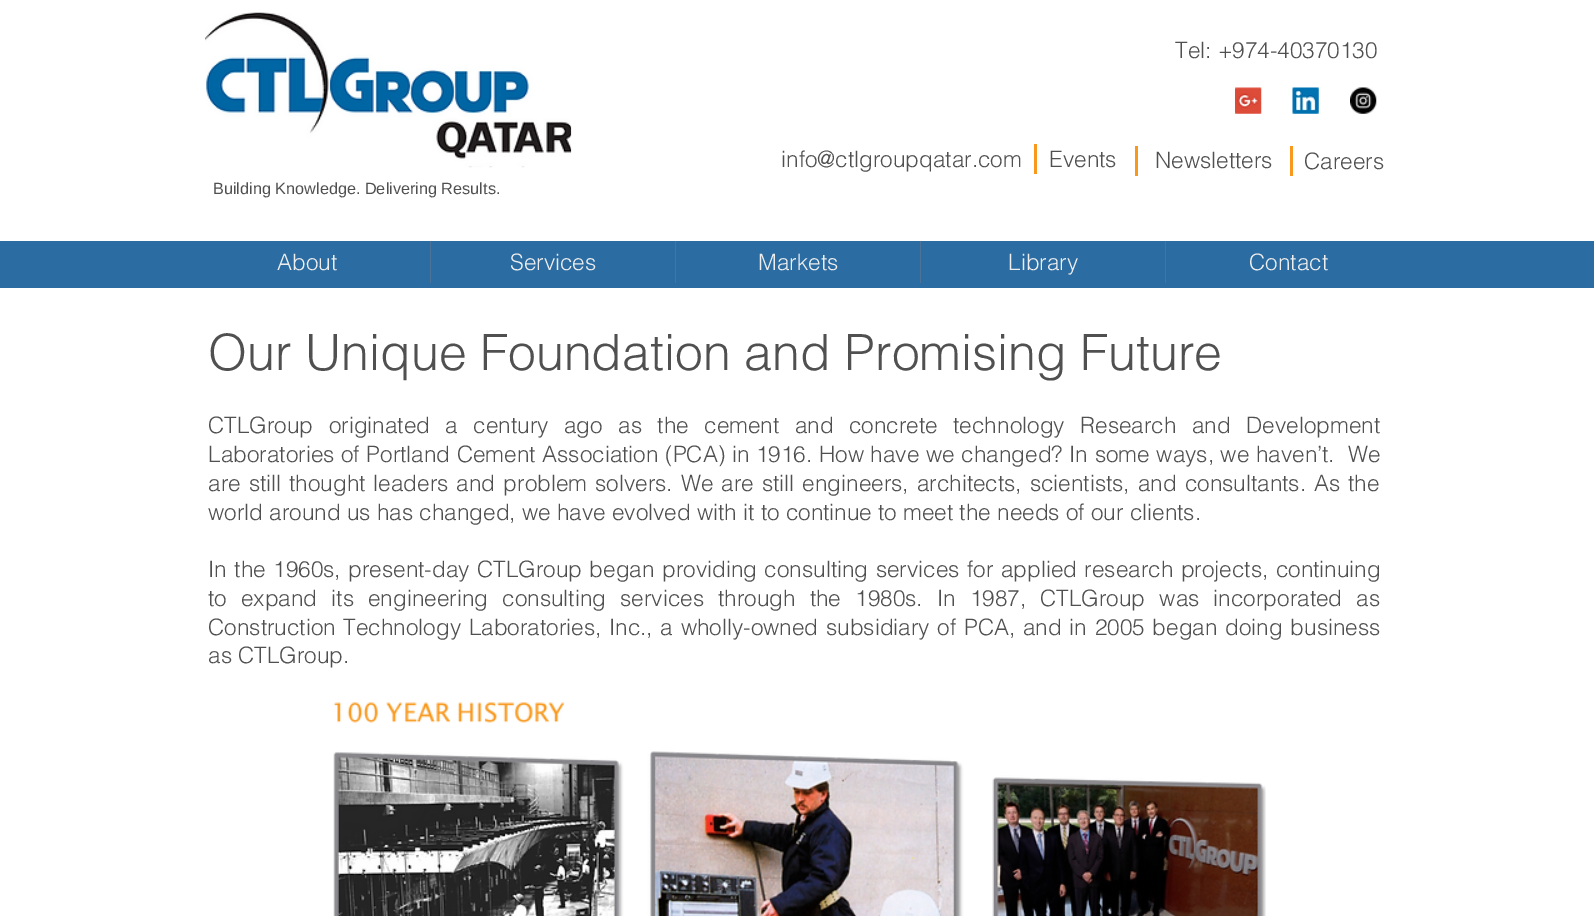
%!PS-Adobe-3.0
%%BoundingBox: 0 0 1594 916
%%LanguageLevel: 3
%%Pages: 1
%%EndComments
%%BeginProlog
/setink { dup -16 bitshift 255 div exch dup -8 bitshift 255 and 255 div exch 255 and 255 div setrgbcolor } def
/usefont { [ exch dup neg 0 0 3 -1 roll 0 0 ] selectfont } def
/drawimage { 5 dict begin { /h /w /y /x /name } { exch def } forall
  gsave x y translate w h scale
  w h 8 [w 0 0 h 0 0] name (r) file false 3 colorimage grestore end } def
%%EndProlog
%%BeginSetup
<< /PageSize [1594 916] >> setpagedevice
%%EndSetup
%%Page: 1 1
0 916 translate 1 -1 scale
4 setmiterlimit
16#FFFFFF setink
0 0 1594 916 rectfill
(img1.raw) 205 12 367 156 drawimage
/helvetica-Light 22.5 usefont
16#505050 setink
1175 58 moveto (Tel: +974-40370130) show
(img2.raw) 1235 87 27 27 drawimage
(img3.raw) 1292 87 27 27 drawimage
(img4.raw) 1350 87 27 27 drawimage
781 167 moveto (info@ctlgroupqatar.com) show
16#F8981D setink
1034 144 3 30 rectfill
16#505050 setink
1049 167 moveto (Events) show
16#F8981D setink
1135 146 3 30 rectfill
16#505050 setink
1155 168 moveto (Newsletters) show
16#F8981D setink
1290 146 3 30 rectfill
16#505050 setink
1304 169 moveto (Careers) show
/LiberationSans-Regular 16.25 usefont
213 194 moveto (Building Knowledge. Delivering Results.) show
16#2B6CA3 setink
0 241 1594 47 rectfill
/helvetica-Light 22.5 usefont
16#EEEEEE setink
277 270 moveto (About) show
16#4C7397 setink
430 241 1 42 rectfill
16#EEEEEE setink
510 270 moveto (Services) show
16#4C7397 setink
675 241 1 42 rectfill
16#EEEEEE setink
758 270 moveto (Markets) show
16#4C7397 setink
920 241 1 42 rectfill
16#EEEEEE setink
1008 270 moveto (Library) show
16#4C7397 setink
1165 241 1 42 rectfill
16#EEEEEE setink
1249 270 moveto (Contact) show
/helvetica-Light 50 usefont
16#505050 setink
208 370 moveto (Our Unique Foundation and Promising Future) show
/helvetica-Light 22.5 usefont
208 433 moveto 9.25 0 32 (CTLGroup originated a century ago as the cement and concrete technology Research and Development) widthshow
208 462 moveto 0.4 0 32 (Laboratories of Portland Cement Association \(PCA\) in 1916. How have we changed? In some ways, we haven’t.  We) widthshow
208 491 moveto 1.8 0 32 (are still thought leaders and problem solvers. We are still engineers, architects, scientists, and consultants. As the) widthshow
208 520 moveto (world around us has changed, we have evolved with it to continue to meet the needs of our clients.) show
208 577 moveto 1.25 0 32 (In the 1960s, present-day CTLGroup began providing consulting services for applied research projects, continuing) widthshow
208 606 moveto 7.9 0 32 (to expand its engineering consulting services through the 1980s. In 1987, CTLGroup was incorporated as) widthshow
208 635 moveto 1.5 0 32 (Construction Technology Laboratories, Inc., a wholly-owned subsidiary of PCA, and in 2005 began doing business) widthshow
208 663 moveto (as CTLGroup.) show
(img5.raw) 333 702 933 214 drawimage
showpage
%%EOF
